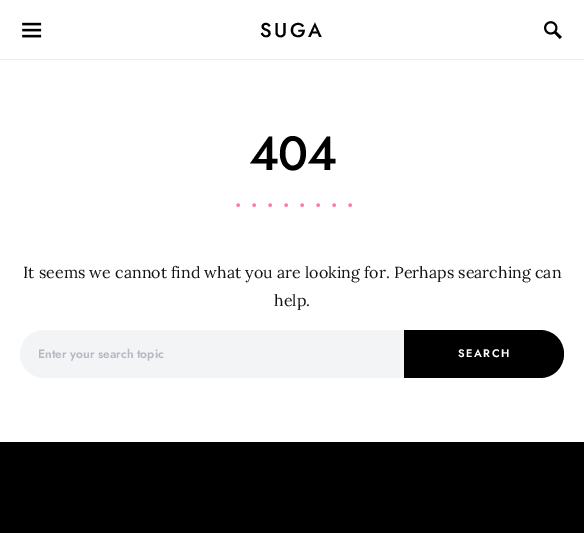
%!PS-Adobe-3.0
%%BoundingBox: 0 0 584 533
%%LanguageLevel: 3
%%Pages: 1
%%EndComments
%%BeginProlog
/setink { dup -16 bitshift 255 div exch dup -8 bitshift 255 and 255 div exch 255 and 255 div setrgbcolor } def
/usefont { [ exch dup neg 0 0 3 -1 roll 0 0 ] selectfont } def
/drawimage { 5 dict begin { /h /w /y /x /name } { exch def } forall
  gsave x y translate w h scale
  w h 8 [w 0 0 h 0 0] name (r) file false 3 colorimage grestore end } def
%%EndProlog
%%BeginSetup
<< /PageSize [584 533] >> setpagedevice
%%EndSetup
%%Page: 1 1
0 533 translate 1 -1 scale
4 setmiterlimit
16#FFFFFF setink
0 0 584 533 rectfill
16#E9ECEF setink
0 59 584 1 rectfill
(img1.raw) 22 22 20 16 drawimage
/Jost-Medium 20 usefont
16#000000 setink
260 37 moveto 2.5 0 (SUGA) ashow
(img2.raw) 544 21 18 18 drawimage
/Jost-Medium 48 usefont
249 170 moveto -1 0 (404) ashow
16#FD79A8 setink
3.5 setlinewidth
1 setlinecap
[0 16] 0 setdash
238 205 moveto 350.2 205 lineto stroke
/Lora-Regular 16 usefont
16#121416 setink
23 278 moveto (It seems we cannot find what you are looking for. Perhaps searching can) show
274 306 moveto (help.) show
16#F2F4F6 setink
44 331 moveto 403 331 lineto 403 377 lineto 44 377 lineto 31.5 377 21 366.5 21 354 curveto 21 341.5 31.5 331 44 331 curveto closepath gsave fill grestore
2 setlinewidth
0 setlinecap
[] 0 setdash
stroke
/Jost-SemiBold 12 usefont
16#B7B9C2 setink
38 358 moveto (Enter your search topic) show
16#000000 setink
404 330 moveto 540 330 lineto 553.5 330 564 340.5 564 354 curveto 564 367.5 553.5 378 540 378 curveto 404 378 lineto closepath fill
/Jost-SemiBold 11 usefont
16#FFFFFF setink
458 357 moveto 1.5 0 (SEARCH) ashow
16#000000 setink
0 442 584 91 rectfill
showpage
%%EOF
